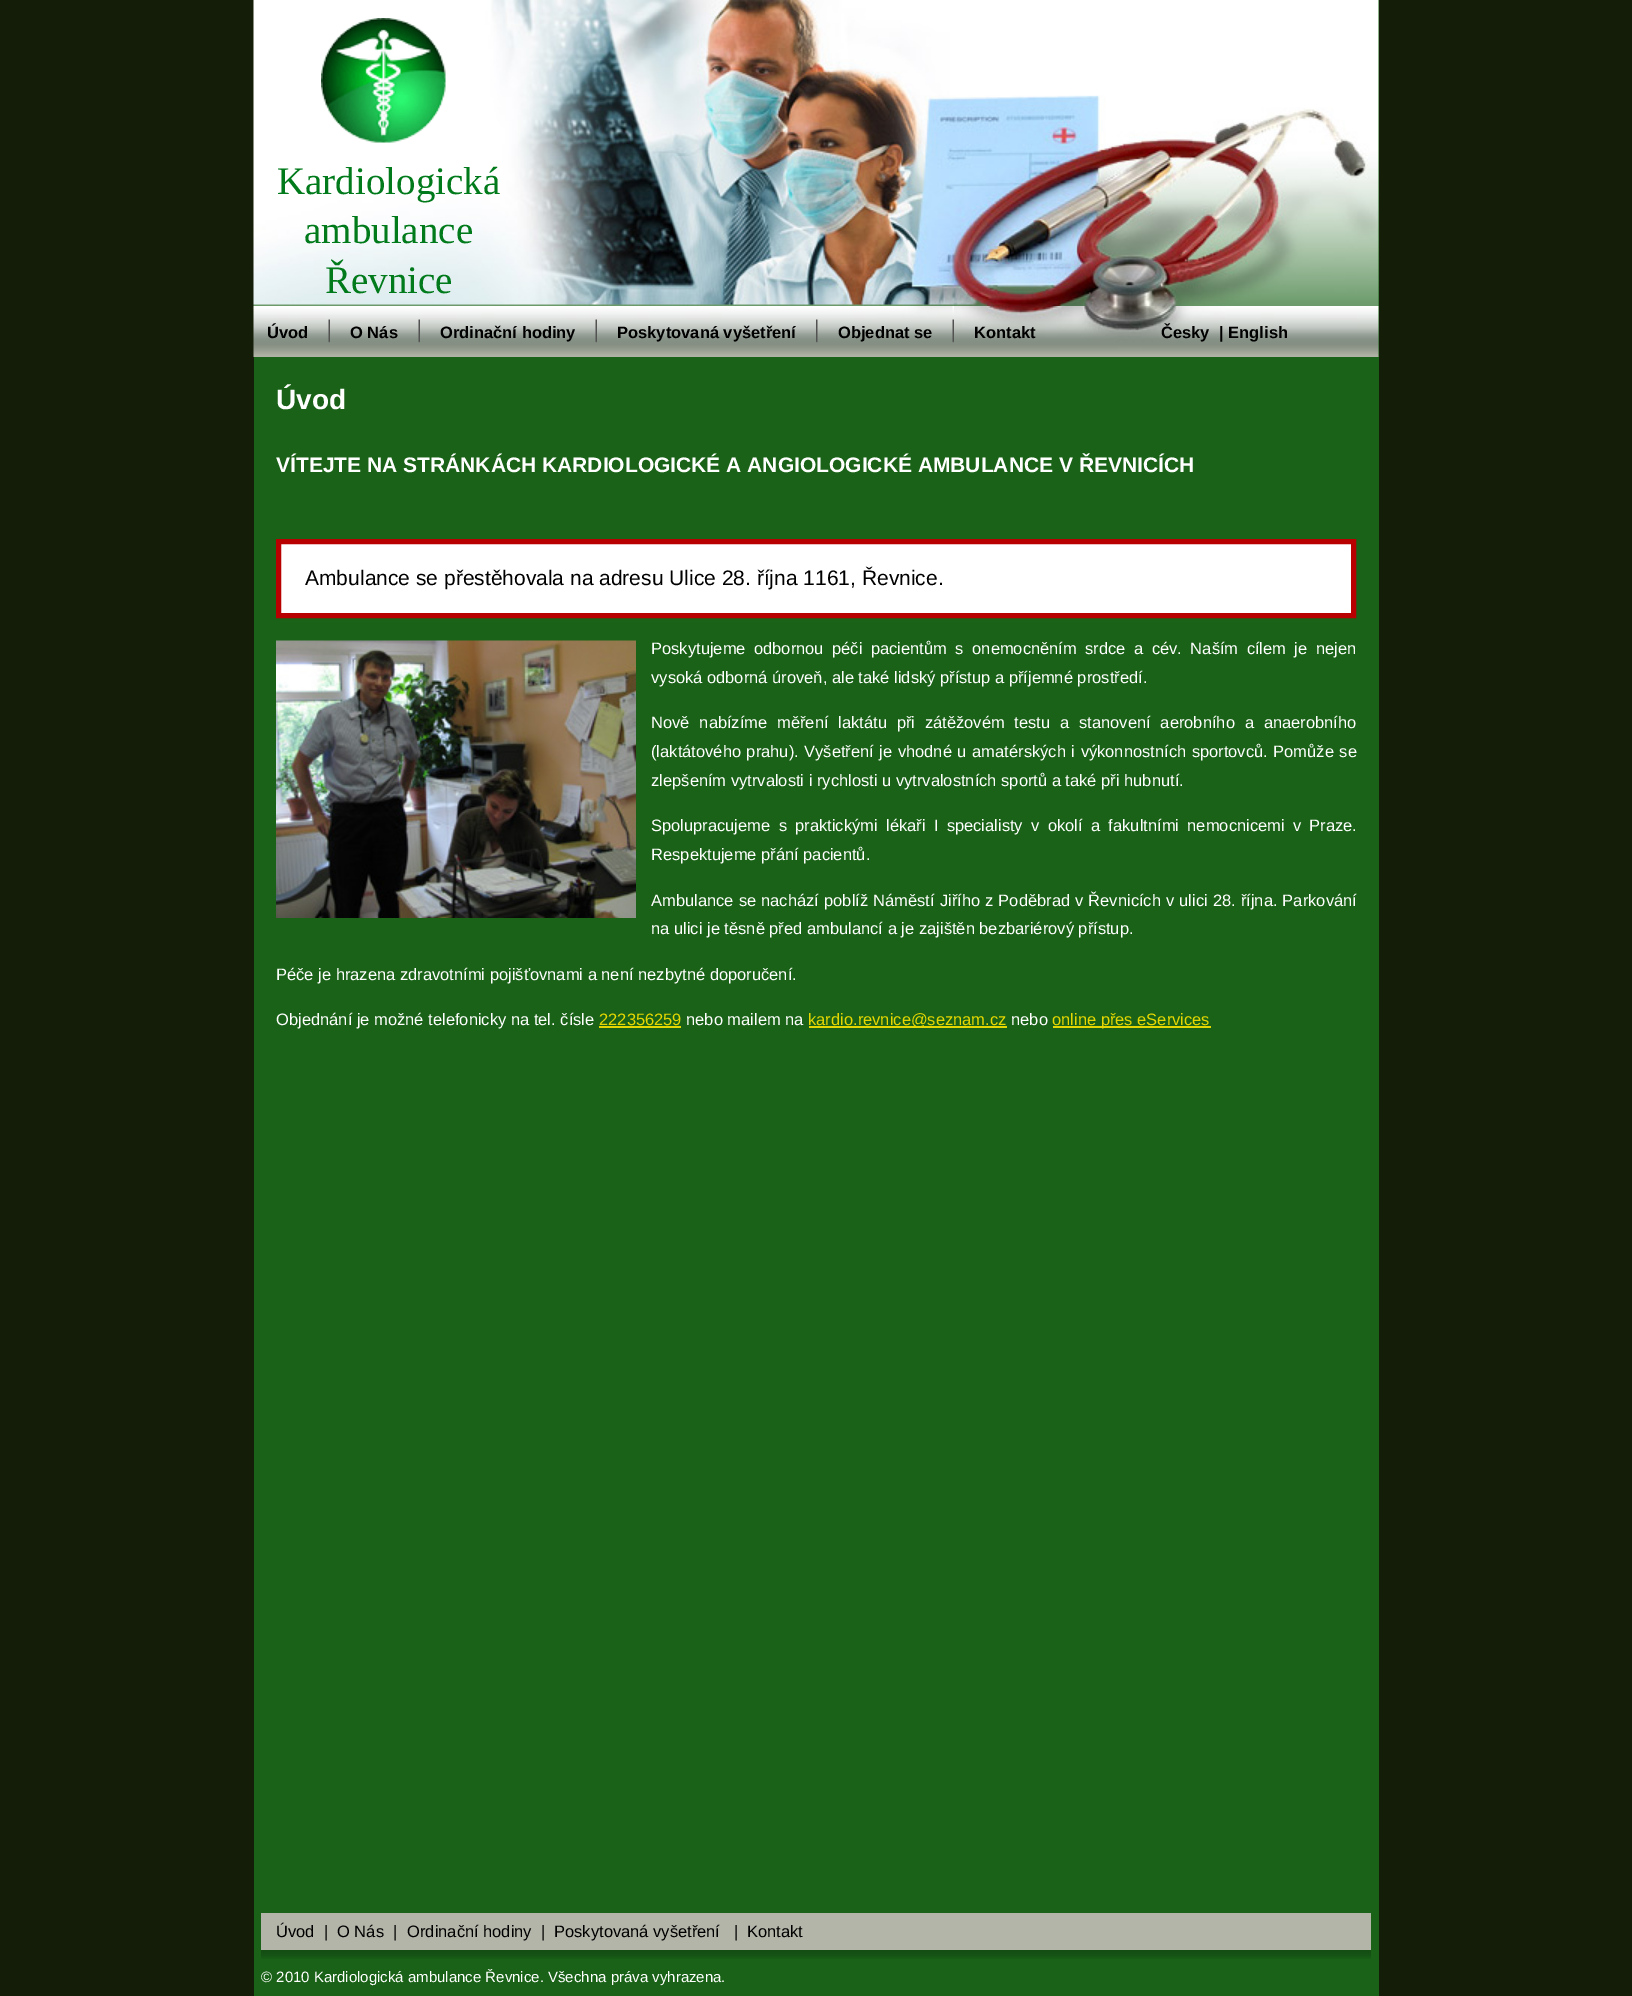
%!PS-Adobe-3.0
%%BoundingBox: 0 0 1632 1996
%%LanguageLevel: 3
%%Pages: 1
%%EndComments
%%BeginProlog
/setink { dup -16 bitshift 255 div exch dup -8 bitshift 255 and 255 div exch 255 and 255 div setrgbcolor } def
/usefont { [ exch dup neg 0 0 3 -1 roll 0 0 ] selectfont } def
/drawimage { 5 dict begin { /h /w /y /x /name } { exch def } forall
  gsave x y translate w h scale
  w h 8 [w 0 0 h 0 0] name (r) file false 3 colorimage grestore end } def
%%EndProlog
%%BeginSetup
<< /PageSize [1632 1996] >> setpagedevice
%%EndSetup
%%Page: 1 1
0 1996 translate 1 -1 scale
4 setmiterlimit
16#141D07 setink
0 0 1632 1996 rectfill
16#196217 setink
254 0 1125 1996 rectfill
(img1.raw) 253 0 1126 306 drawimage
(img2.raw) 321 18 125 125 drawimage
/LiberationSerif-Regular 39 usefont
16#007A1A setink
[
    [(Kardiologická) 277 194]
    [(ambulance) 304 243]
    [(Řevnice) 325 293]
] { aload pop moveto show } forall
(img3.raw) 253 306 1126 51 drawimage
/LiberationSans-Bold 16.5 usefont
16#000000 setink
267 338 moveto (Úvod) show
(img4.raw) 328 319 2 24 drawimage
350 338 moveto (O Nás) show
(img4.raw) 418 319 2 24 drawimage
440 338 moveto (Ordinační hodiny) show
(img5.raw) 595 319 2 24 drawimage
617 338 moveto (Poskytovaná vyšetření) show
(img6.raw) 816 319 2 24 drawimage
838 338 moveto (Objednat se) show
(img7.raw) 952 306 2 37 drawimage
[
    [(Kontakt) 974 338]
    [(Česky) 1161 338]
    [(| English) 1219 338]
] { aload pop moveto show } forall
/LiberationSans-Bold 28 usefont
16#FFFFFF setink
276 409 moveto (Úvod) show
/LiberationSans-Bold 21 usefont
276 472 moveto (VÍTEJTE NA STRÁNKÁCH KARDIOLOGICKÉ A ANGIOLOGICKÉ AMBULANCE V ŘEVNICÍCH) show
278.5 541.5 moveto 1353.5 541.5 lineto 1353.5 615.5 lineto 278.5 615.5 lineto closepath gsave fill grestore
16#B90000 setink
5 setlinewidth
stroke
/LiberationSans-Regular 21 usefont
16#000000 setink
305 585 moveto (Ambulance se přestěhovala na adresu Ulice 28. října 1161, Řevnice.) show
(img8.raw) 276 640 360 278 drawimage
/LiberationSans-Regular 16.5 usefont
16#FFFFFF setink
651 654 moveto 3.9 0 32 (Poskytujeme odbornou péči pacientům s onemocněním srdce a cév. Naším cílem je nejen) widthshow
651 683 moveto (vysoká odborná úroveň, ale také lidský přístup a příjemné prostředí.) show
651 728 moveto 5.25 0 32 (Nově nabízíme měření laktátu při zátěžovém testu a stanovení aerobního a anaerobního) widthshow
651 757 moveto 1 0 32 (\(laktátového prahu\).) widthshow
804 757 moveto 1 0 32 (Vyšetření je vhodné u amatérských i výkonnostních sportovců. Pomůže se) widthshow
651 786 moveto (zlepšením vytrvalosti i rychlosti u vytrvalostních sportů a také při hubnutí.) show
651 831 moveto 3.75 0 32 (Spolupracujeme s praktickými lékaři I specialisty v okolí a fakultními nemocnicemi v Praze.) widthshow
651 860 moveto (Respektujeme přání pacientů.) show
651 906 moveto 0.5 0 32 (Ambulance se nachází poblíž Náměstí Jiřího z Poděbrad v Řevnicích v ulici 28. října. Parkování) widthshow
[
    [(na ulici je těsně před ambulancí a je zajištěn bezbariérový přístup.) 651 934]
    [(Péče je hrazena zdravotními pojišťovnami a není nezbytné doporučení.) 276 980]
    [(Objednání je možné telefonicky na tel. čísle) 276 1025]
] { aload pop moveto show } forall
16#E6D702 setink
599 1025 moveto (222356259) show
599 1026 82 2 rectfill
16#FFFFFF setink
686 1025 moveto (nebo mailem na) show
16#E6D702 setink
809 1026 198 2 rectfill
808 1025 moveto (kardio.revnice@seznam.cz) show
16#FFFFFF setink
1011 1025 moveto (nebo) show
16#E6D702 setink
1053 1026 158 2 rectfill
1052 1025 moveto (online přes eServices) show
16#B3B5A8 setink
261 1913 1110 37 rectfill
16#000000 setink
[
    [(Úvod) 276 1937]
    [(|) 324 1937]
    [(O Nás) 337 1937]
    [(|) 393 1937]
    [(Ordinační hodiny) 407 1937]
    [(|) 541 1937]
    [(Poskytovaná vyšetření) 554 1937]
    [(|) 734 1937]
    [(Kontakt) 747 1937]
] { aload pop moveto show } forall
(img9.raw) 261 1950 1110 9 drawimage
/LiberationSans-Regular 15 usefont
16#FFFFFF setink
261 1982 moveto (© 2010 Kardiologická ambulance Řevnice. Všechna práva vyhrazena.) show
showpage
%%EOF
